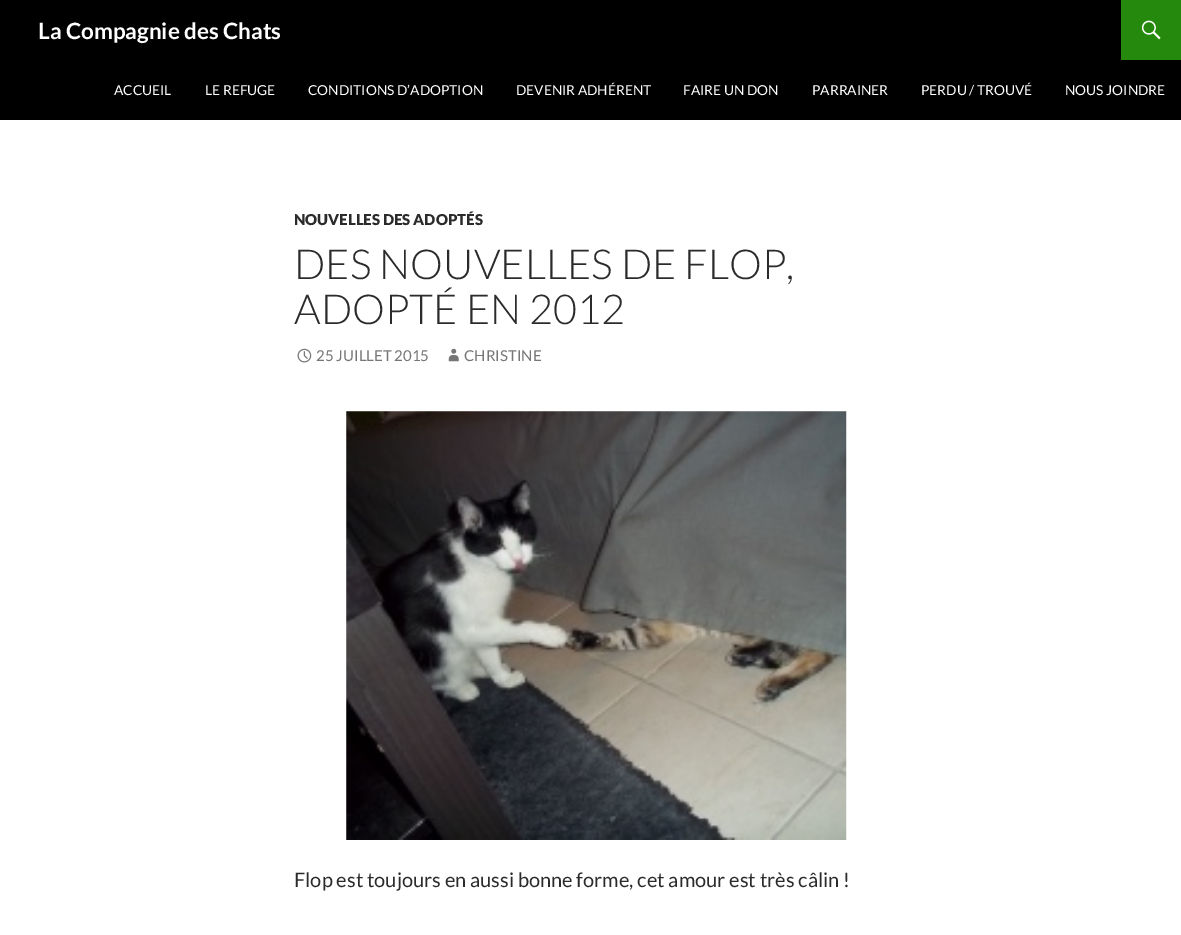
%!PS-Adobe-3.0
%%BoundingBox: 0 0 1181 935
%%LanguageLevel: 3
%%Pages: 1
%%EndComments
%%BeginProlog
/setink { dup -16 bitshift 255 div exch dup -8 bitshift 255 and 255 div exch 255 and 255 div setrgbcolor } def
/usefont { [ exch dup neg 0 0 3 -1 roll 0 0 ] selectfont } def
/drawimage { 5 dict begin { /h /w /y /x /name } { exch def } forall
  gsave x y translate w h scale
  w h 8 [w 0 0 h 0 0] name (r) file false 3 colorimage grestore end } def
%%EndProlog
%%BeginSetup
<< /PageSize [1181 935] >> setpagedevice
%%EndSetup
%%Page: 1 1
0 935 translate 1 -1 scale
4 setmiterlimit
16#FFFFFF setink
0 0 1181 935 rectfill
16#000000 setink
0 0 1181 120 rectfill
/Lato-Bold 22.5 usefont
16#FFFFFF setink
38 39 moveto (La Compagnie des Chats) show
16#24890D setink
1121 0 60 60 rectfill
(img1.raw) 1141 20 20 20 drawimage
/Lato-Regular 13.75 usefont
16#FFFFFF setink
[
    [(ACCUEIL) 114 95]
    [(LE REFUGE) 205 95]
    [(CONDITIONS D’ADOPTION) 308 95]
    [(DEVENIR ADHÉRENT) 516 95]
    [(FAIRE UN DON) 683 95]
    [(PARRAINER) 812 95]
    [(PERDU / TROUVÉ) 921 95]
    [(NOUS JOINDRE) 1065 95]
] { aload pop moveto show } forall
/Lato-Black 15 usefont
16#2B2B2B setink
294 225 moveto (NOUVELLES DES ADOPTÉS) show
/Lato-Light 41.25 usefont
294 279 moveto (DES NOUVELLES DE FLOP,) show
294 324 moveto (ADOPTÉ EN 2012) show
(img2.raw) 297 348 15 15 drawimage
/Lato-Regular 15 usefont
16#767676 setink
316 361 moveto (25 JUILLET 2015) show
(img3.raw) 448 348 11 14 drawimage
464 361 moveto (CHRISTINE) show
(img4.raw) 346 411 501 429 drawimage
/Lato-Regular 20 usefont
16#2B2B2B setink
294 887 moveto (Flop est toujours en aussi bonne forme, cet amour est très câlin !) show
showpage
%%EOF
